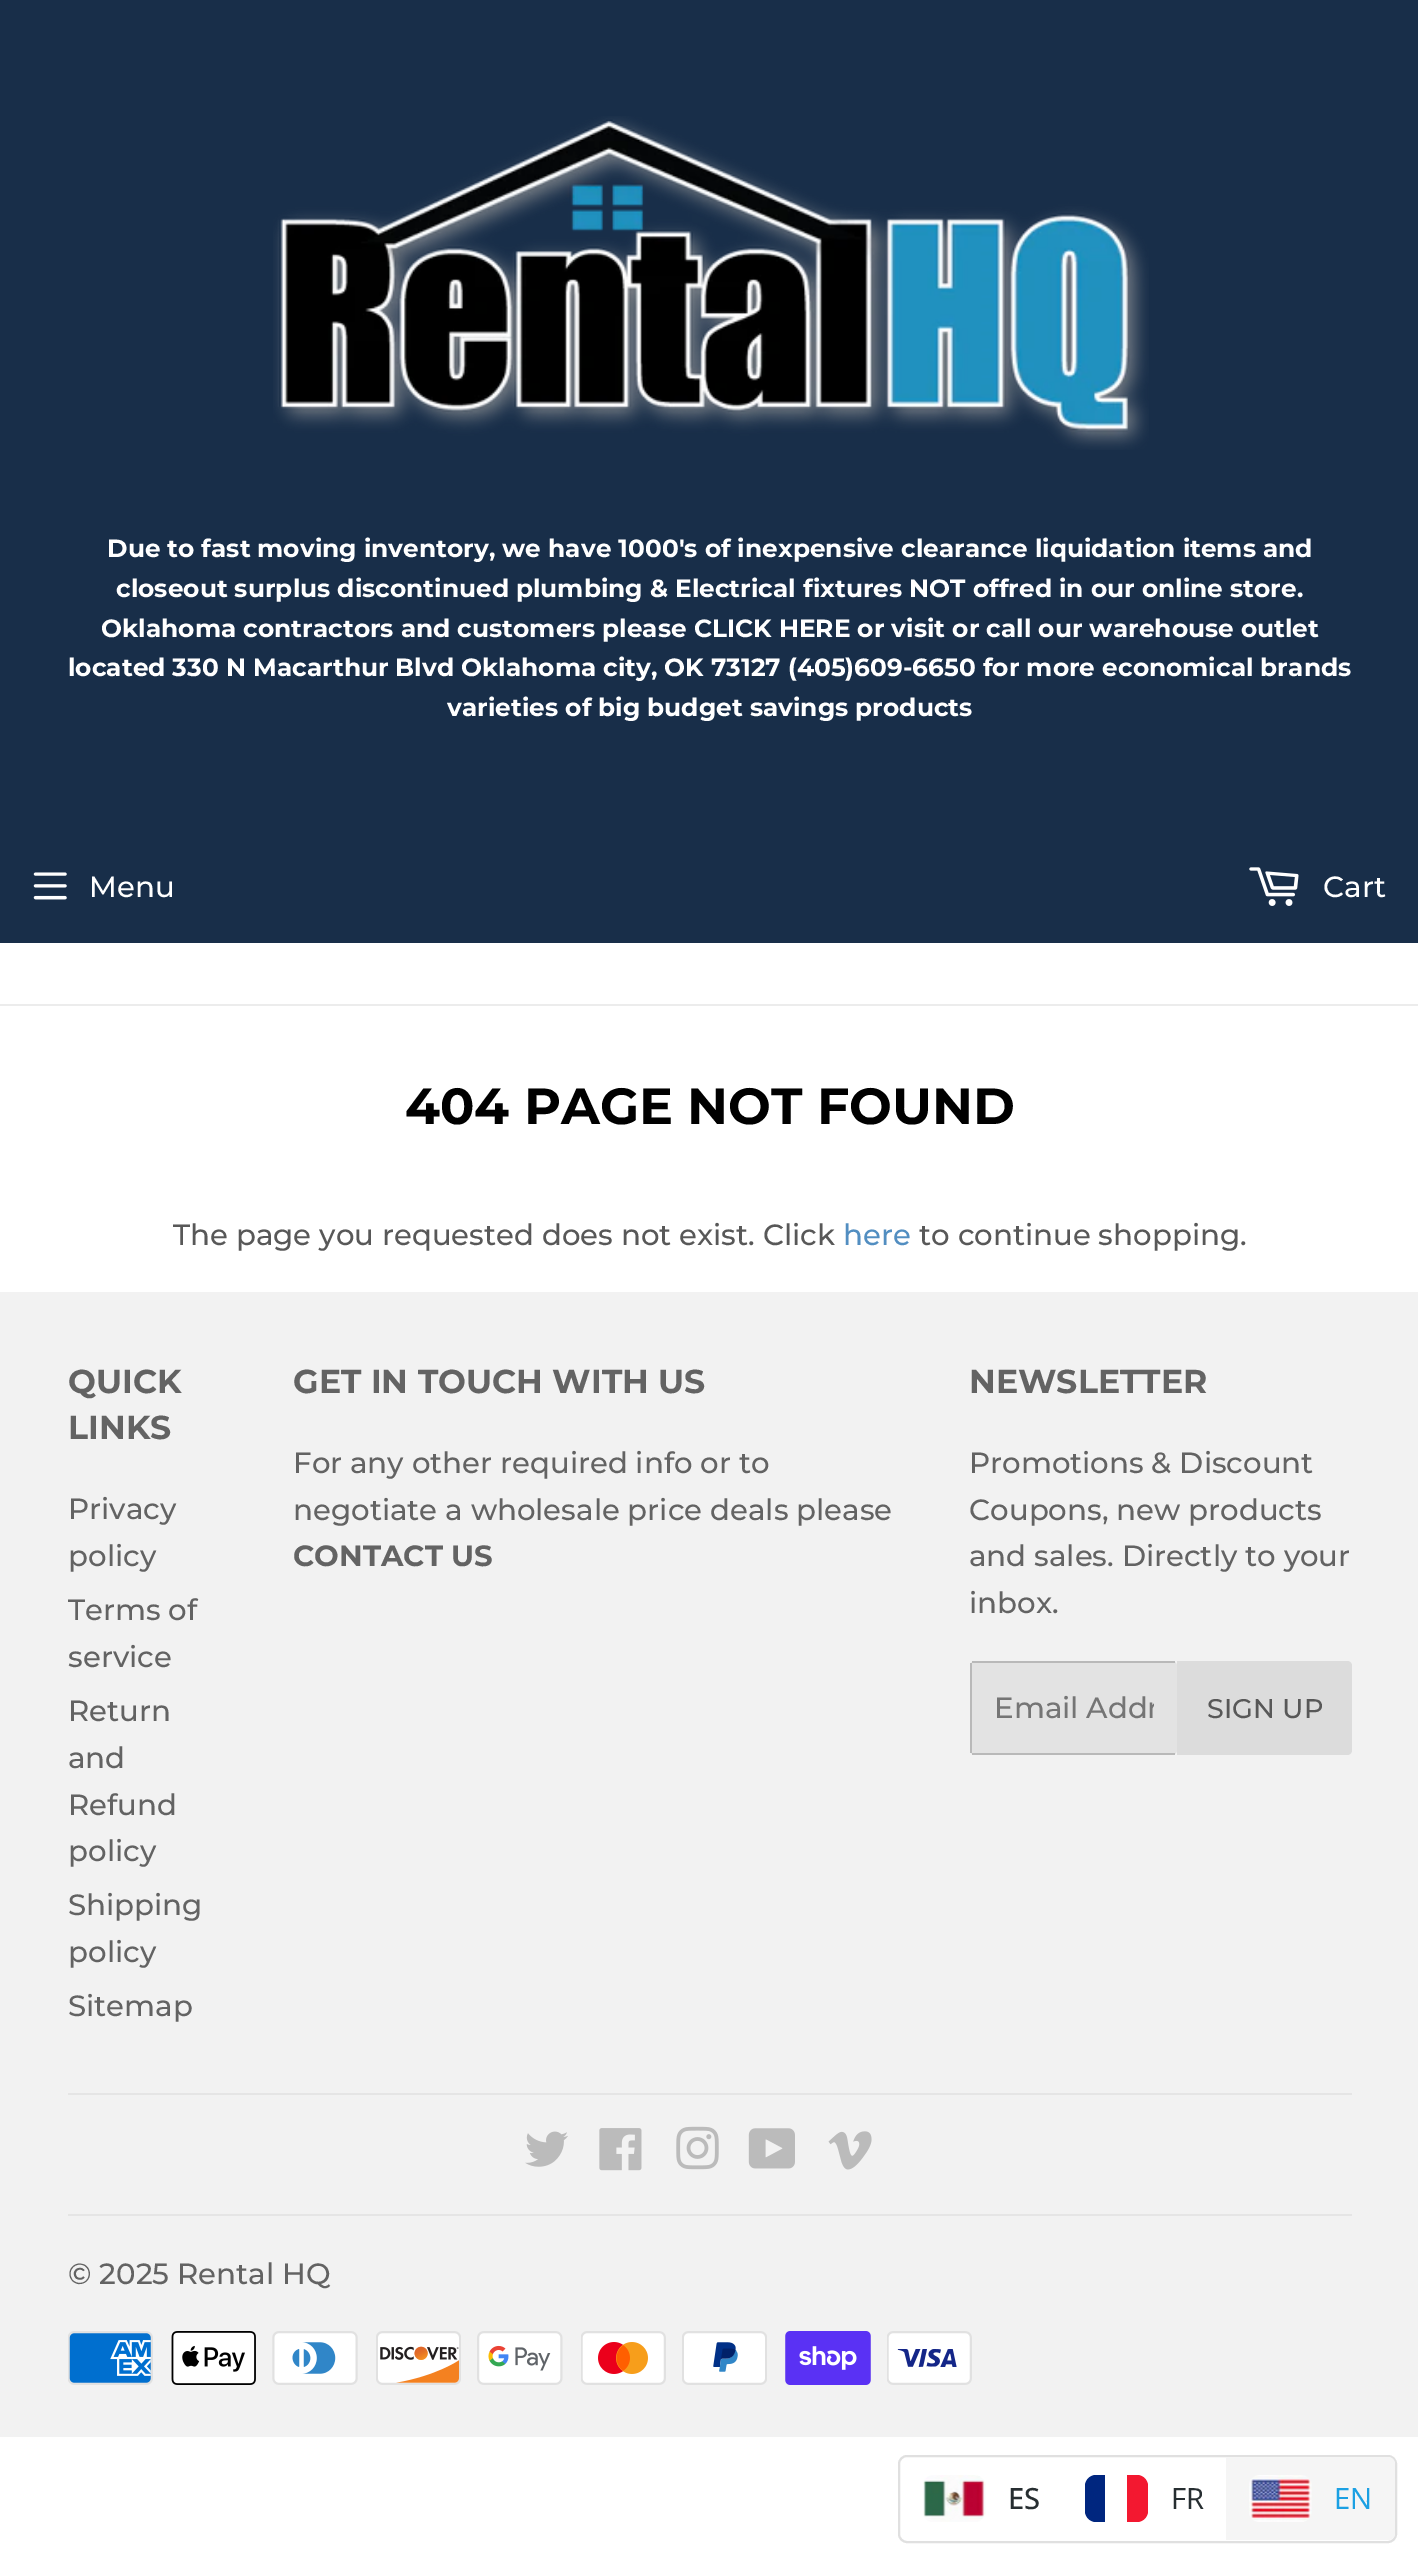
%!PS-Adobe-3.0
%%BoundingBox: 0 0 1418 2565
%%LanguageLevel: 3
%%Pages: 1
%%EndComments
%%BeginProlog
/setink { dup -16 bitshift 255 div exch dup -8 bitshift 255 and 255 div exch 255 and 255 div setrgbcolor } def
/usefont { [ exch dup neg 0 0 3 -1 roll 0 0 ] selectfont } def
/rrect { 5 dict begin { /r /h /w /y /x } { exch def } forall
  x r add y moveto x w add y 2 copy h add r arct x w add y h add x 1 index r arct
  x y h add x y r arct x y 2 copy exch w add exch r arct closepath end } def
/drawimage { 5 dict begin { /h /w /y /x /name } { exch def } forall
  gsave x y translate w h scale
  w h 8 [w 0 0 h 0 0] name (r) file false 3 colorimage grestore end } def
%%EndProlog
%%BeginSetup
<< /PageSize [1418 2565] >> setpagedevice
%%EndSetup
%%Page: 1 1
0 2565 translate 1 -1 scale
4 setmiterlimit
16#FFFFFF setink
0 0 1418 2565 rectfill
16#182E49 setink
0 0 1418 943 rectfill
(img1.raw) 273 116 876 334 drawimage
/Montserrat-Bold 24.85 usefont
16#FFFFFF setink
[
    [(Due to fast moving inventory, we have 1000's of inexpensive clearance liquidation items and) 107 557]
    [(closeout surplus discontinued plumbing & Electrical fixtures NOT offred in our online store.) 116 597]
    [(Oklahoma contractors and customers please CLICK HERE or visit or call our warehouse outlet) 101 637]
    [(located 330 N Macarthur Blvd Oklahoma city, OK 73127 \(405\)609-6650 for more economical brands) 68 676]
    [(varieties of big budget savings products) 447 716]
] { aload pop moveto show } forall
(img2.raw) 33 872 34 28 drawimage
/Montserrat-Medium 29.25 usefont
89 897 moveto (Menu) show
(img3.raw) 1249 867 50 39 drawimage
1323 897 moveto (Cart) show
16#ECECEC setink
0 1004 1418 2 rectfill
/Montserrat-Bold 50.75 usefont
16#000000 setink
405 1124 moveto (404 PAGE NOT FOUND) show
/Montserrat-Medium 29.25 usefont
16#585858 setink
173 1245 moveto (The page you requested does not exist. Click) show
16#528EC1 setink
843 1245 moveto (here) show
16#585858 setink
919 1245 moveto (to continue shopping.) show
16#F2F2F2 setink
0 1292 1418 1145 rectfill
/Montserrat-Bold 33.1 usefont
16#636363 setink
68 1393 moveto (QUICK) show
68 1439 moveto (LINKS) show
/Montserrat-Medium 29.25 usefont
[
    [(Privacy) 68 1519]
    [(policy) 68 1566]
    [(Terms of) 68 1620]
    [(service) 68 1667]
    [(Return) 68 1721]
    [(and) 68 1768]
    [(Refund) 68 1815]
    [(policy) 68 1861]
    [(Shipping) 68 1915]
    [(policy) 68 1962]
    [(Sitemap) 68 2016]
] { aload pop moveto show } forall
/Montserrat-Bold 33.1 usefont
293 1393 moveto (GET IN TOUCH WITH US) show
/Montserrat-Medium 29.25 usefont
293 1473 moveto (For any other required info or to) show
293 1520 moveto (negotiate a wholesale price deals please) show
/Montserrat-Bold 29.25 usefont
293 1566 moveto (CONTACT US) show
/Montserrat-Bold 33.1 usefont
969 1393 moveto (NEWSLETTER) show
/Montserrat-Medium 29.25 usefont
[
    [(Promotions & Discount) 969 1473]
    [(Coupons, new products) 969 1520]
    [(and sales. Directly to your) 969 1566]
    [(inbox.) 969 1613]
] { aload pop moveto show } forall
16#E3E3E3 setink
970 1661 207 94 5 rrect fill
[
    [972 1661 203 2 16#B9B9B9]
    [972 1753 203 2 16#B9B9B9]
    [970 1663 2 90 16#B9B9B9]
] { aload pop setink rectfill } forall
gsave
995 1690 159 36 rectclip
16#757575 setink
994 1718 moveto (Email Addr) show
grestore
16#DCDCDC setink
1177 1661 moveto 1347 1661 lineto 1350 1661 1352 1663 1352 1666 curveto 1352 1750 lineto 1352 1753 1350 1755 1347 1755 curveto 1177 1755 lineto closepath fill
/Montserrat-Medium 27 usefont
16#585858 setink
1207 1718 moveto (SIGN UP) show
16#E5E5E5 setink
68 2093 1284 2 rectfill
(img4.raw) 525 2131 43 36 drawimage
(img5.raw) 599 2128 43 43 drawimage
(img6.raw) 676 2126 43 44 drawimage
(img7.raw) 748 2128 47 41 drawimage
(img8.raw) 828 2131 44 39 drawimage
68 2214 1284 2 rectfill
/Montserrat-Medium 29.25 usefont
16#636363 setink
68 2284 moveto (© 2025 Rental HQ) show
(img9.raw) 68 2331 85 54 drawimage
(img10.raw) 171 2331 85 54 drawimage
(img11.raw) 272 2331 86 54 drawimage
(img12.raw) 376 2331 85 54 drawimage
(img13.raw) 477 2331 86 54 drawimage
(img14.raw) 581 2331 85 54 drawimage
(img15.raw) 682 2331 85 54 drawimage
(img16.raw) 785 2331 86 54 drawimage
(img17.raw) 887 2331 85 54 drawimage
16#E0E0E0 setink
2 setlinewidth
899 2456 497 86 8 rrect stroke
(img18.raw) 923 2475 63 47 drawimage
/OpenSans-Medium 29.25 usefont
16#272E31 setink
1008 2509 moveto (ES) show
16#00267F setink
1096 2475 moveto 1105 2475 lineto 1105 2522 lineto 1096 2522 lineto 1090 2522 1085 2517 1085 2511 curveto 1085 2486 lineto 1085 2480 1090 2475 1096 2475 curveto closepath fill
16#F31830 setink
1127 2475 moveto 1137 2475 lineto 1143 2475 1148 2480 1148 2486 curveto 1148 2511 lineto 1148 2517 1143 2522 1137 2522 curveto 1127 2522 lineto closepath fill
/OpenSans-Regular 29.25 usefont
16#272E31 setink
1171 2509 moveto (FR) show
16#F5F5F5 setink
1226 2457 moveto 1388 2457 lineto 1392 2457 1395 2460 1395 2464 curveto 1395 2533 lineto 1395 2537 1392 2540 1388 2540 curveto 1226 2540 lineto closepath fill
(img19.raw) 1249 2475 63 47 drawimage
16#1BA0E3 setink
1334 2509 moveto (EN) show
showpage
%%EOF
